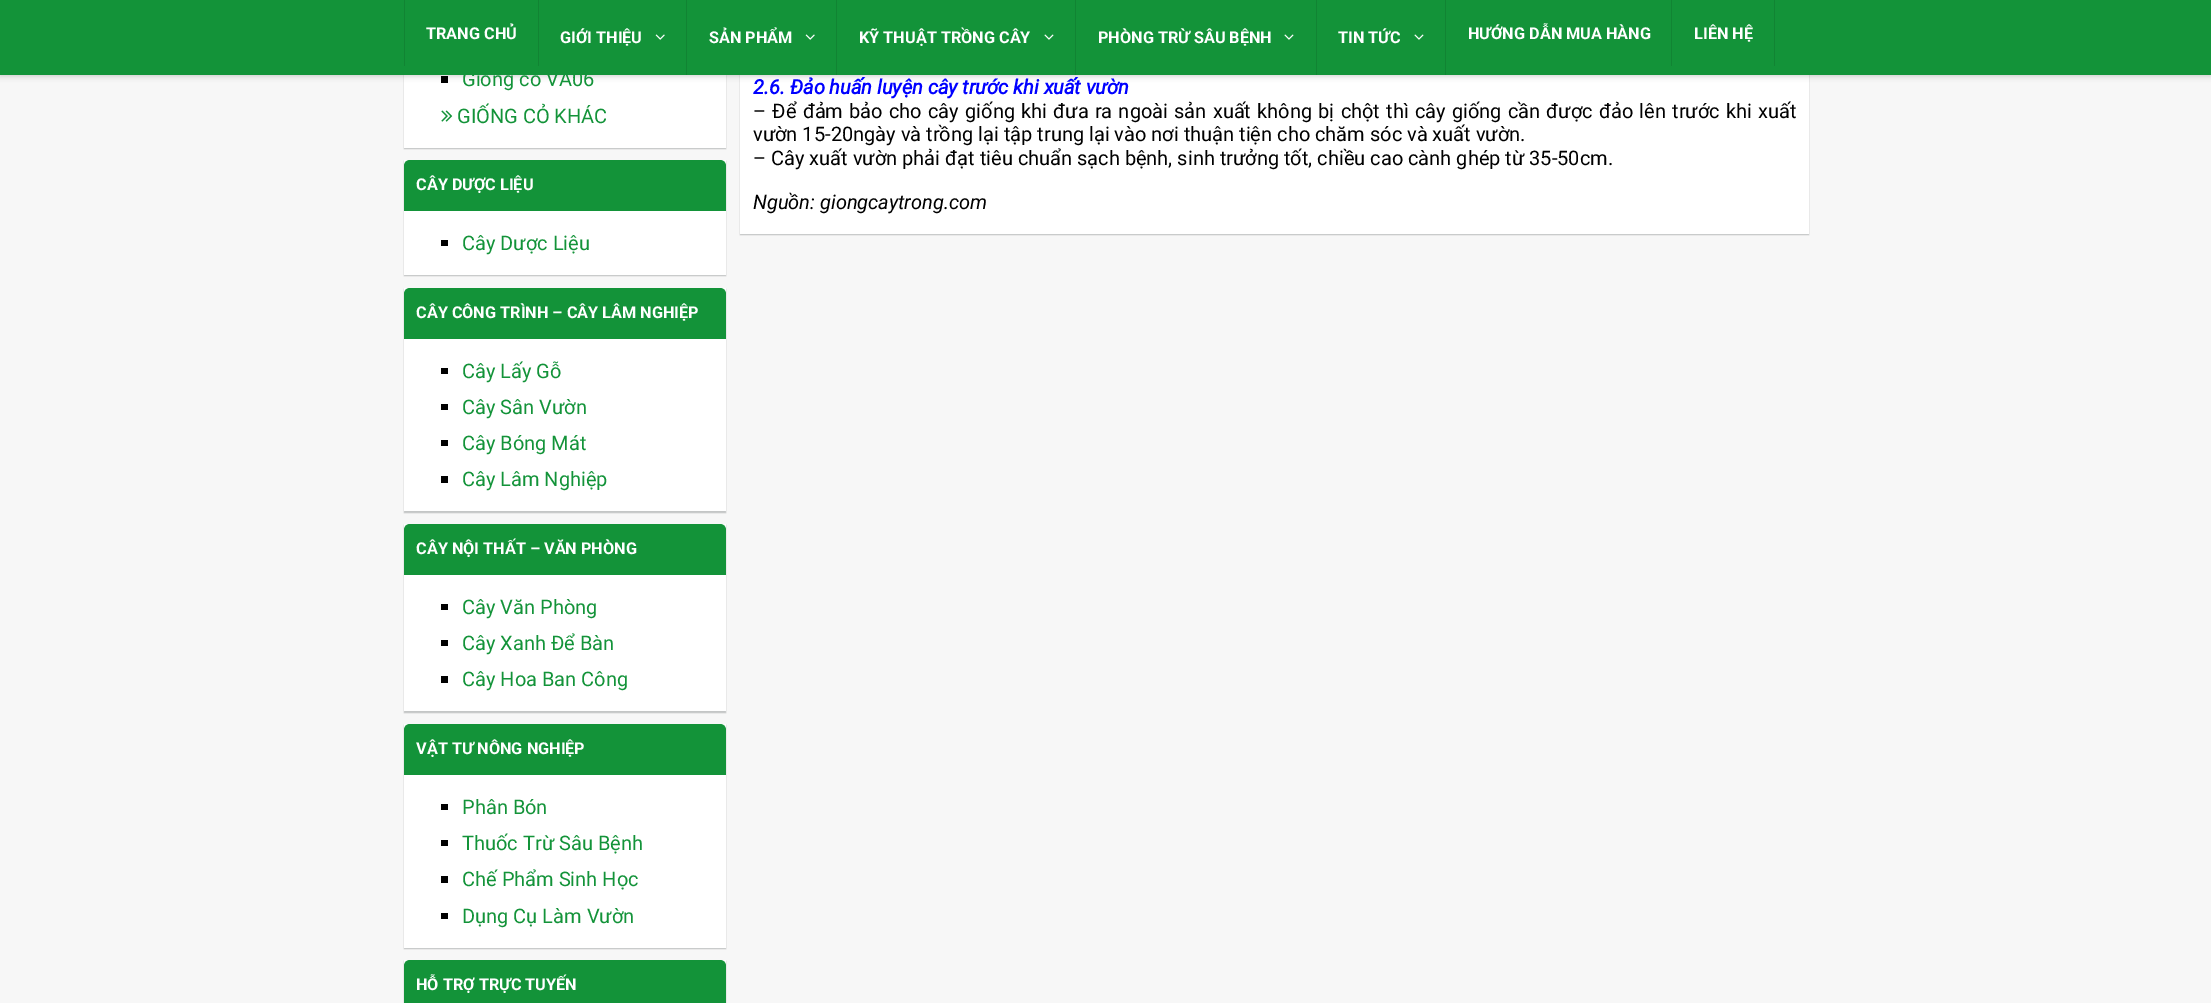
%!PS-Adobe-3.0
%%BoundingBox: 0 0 2211 1003
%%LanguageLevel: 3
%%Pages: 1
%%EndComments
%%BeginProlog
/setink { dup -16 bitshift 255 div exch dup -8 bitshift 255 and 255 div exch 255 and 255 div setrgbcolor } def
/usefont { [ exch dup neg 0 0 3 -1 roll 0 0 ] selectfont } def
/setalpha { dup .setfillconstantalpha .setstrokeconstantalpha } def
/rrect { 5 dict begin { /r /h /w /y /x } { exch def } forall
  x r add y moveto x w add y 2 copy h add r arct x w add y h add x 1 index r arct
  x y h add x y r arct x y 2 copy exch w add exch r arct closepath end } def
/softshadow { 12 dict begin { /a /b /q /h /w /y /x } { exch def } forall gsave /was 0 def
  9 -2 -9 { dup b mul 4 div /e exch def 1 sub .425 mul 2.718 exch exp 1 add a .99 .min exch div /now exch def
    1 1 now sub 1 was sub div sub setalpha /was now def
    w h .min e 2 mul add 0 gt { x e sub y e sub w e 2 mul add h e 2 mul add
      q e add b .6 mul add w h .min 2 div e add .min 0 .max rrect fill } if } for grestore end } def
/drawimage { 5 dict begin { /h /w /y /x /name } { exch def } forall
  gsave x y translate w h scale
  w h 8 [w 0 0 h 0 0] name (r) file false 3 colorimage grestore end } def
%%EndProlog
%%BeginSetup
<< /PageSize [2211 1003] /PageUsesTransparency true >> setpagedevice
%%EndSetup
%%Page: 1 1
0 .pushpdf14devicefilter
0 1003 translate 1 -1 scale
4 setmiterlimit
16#F7F7F7 setink
0 0 2211 1003 rectfill
16#C2C4C4 setink
404 -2 322 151 0 0.5 1 softshadow
16#FFFFFF setink
404 75 322 73 rectfill
16#000000 setink
441 76 7 7 rectfill
16#C2C4C4 setink
740 -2 1069 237 0 0.5 1 softshadow
16#FFFFFF setink
740 75 1069 159 rectfill
16#000000 setink
0 1 2211 75 0 3 0.2 softshadow
[
    [0 0 2211 75 16#139339]
    [538 0 1 66 16#118433]
    [404 0 1 66 16#118433]
] { aload pop setink rectfill } forall
/Roboto-Bold 16.25 usefont
16#FFFFFF setink
426 39 moveto (TRANG CHỦ) show
16#118433 setink
686 0 1 75 rectfill
16#FFFFFF setink
560 43 moveto (GIỚI THIỆU) show
(img1.raw) 655 34 10 6 drawimage
16#118433 setink
836 0 1 75 rectfill
16#FFFFFF setink
709 43 moveto (SẢN PHẨM) show
(img1.raw) 805 34 10 6 drawimage
16#118433 setink
1075 0 1 75 rectfill
16#FFFFFF setink
859 43 moveto (KỸ THUẬT TRỒNG CÂY) show
(img2.raw) 1044 34 10 6 drawimage
16#118433 setink
1316 0 1 75 rectfill
16#FFFFFF setink
1098 43 moveto (PHÒNG TRỪ SÂU BỆNH) show
(img2.raw) 1284 34 10 6 drawimage
16#118433 setink
1445 0 1 75 rectfill
16#FFFFFF setink
1338 43 moveto (TIN TỨC) show
(img2.raw) 1414 34 10 6 drawimage
16#118433 setink
1671 0 1 66 rectfill
16#FFFFFF setink
1468 39 moveto (HƯỚNG DẪN MUA HÀNG) show
16#118433 setink
1774 0 1 66 rectfill
16#FFFFFF setink
1694 39 moveto (LIÊN HỆ) show
/Roboto-Regular 20 usefont
16#139339 setink
462 86 moveto (Giống cỏ VA06) show
(img3.raw) 441 110 12 12 drawimage
457 123 moveto (GIỐNG CỎ KHÁC) show
16#C2C4C4 setink
404 161 322 115 0 0.5 1 softshadow
16#FFFFFF setink
404 160 322 115 rectfill
16#139339 setink
410 160 moveto 720 160 lineto 723.5 160 726 162.5 726 166 curveto 726 211 lineto 404 211 lineto 404 166 lineto 404 162.5 406.5 160 410 160 curveto closepath fill
/Roboto-Bold 16.25 usefont
16#FFFFFF setink
416 190 moveto (CÂY DƯỢC LIỆU) show
16#000000 setink
441 240 7 6 rectfill
/Roboto-Regular 20 usefont
16#139339 setink
462 250 moveto (Cây Dược Liệu) show
16#C2C4C4 setink
404 289 322 224 0 0.5 1 softshadow
16#FFFFFF setink
404 288 322 223 rectfill
16#139339 setink
410 288 moveto 720 288 lineto 723.5 288 726 290.5 726 294 curveto 726 339 lineto 404 339 lineto 404 294 lineto 404 290.5 406.5 288 410 288 curveto closepath fill
/Roboto-Bold 16.25 usefont
16#FFFFFF setink
416 318 moveto (CÂY CÔNG TRÌNH – CÂY LÂM NGHIỆP) show
16#000000 setink
441 368 7 6 rectfill
/Roboto-Regular 20 usefont
16#139339 setink
462 378 moveto (Cây Lấy Gỗ) show
16#000000 setink
441 404 7 6 rectfill
16#139339 setink
462 414 moveto (Cây Sân Vườn) show
16#000000 setink
441 440 7 6 rectfill
16#139339 setink
462 450 moveto (Cây Bóng Mát) show
16#000000 setink
441 476 7 7 rectfill
16#139339 setink
462 486 moveto (Cây Lâm Nghiệp) show
16#C2C4C4 setink
404 525 322 188 0 0.5 1 softshadow
16#FFFFFF setink
404 524 322 187 rectfill
16#139339 setink
410 524 moveto 720 524 lineto 723.5 524 726 526.5 726 530 curveto 726 575 lineto 404 575 lineto 404 530 lineto 404 526.5 406.5 524 410 524 curveto closepath fill
/Roboto-Bold 16.25 usefont
16#FFFFFF setink
416 554 moveto (CÂY NỘI THẤT – VĂN PHÒNG) show
16#000000 setink
441 604 7 6 rectfill
/Roboto-Regular 20 usefont
16#139339 setink
462 614 moveto (Cây Văn Phòng) show
16#000000 setink
441 640 7 6 rectfill
16#139339 setink
462 650 moveto (Cây Xanh Để Bàn) show
16#000000 setink
441 676 7 7 rectfill
16#139339 setink
462 686 moveto (Cây Hoa Ban Công) show
16#C2C4C4 setink
404 725 322 224 0 0.5 1 softshadow
16#FFFFFF setink
404 724 322 224 rectfill
16#139339 setink
410 724 moveto 720 724 lineto 723.5 724 726 726.5 726 730 curveto 726 775 lineto 404 775 lineto 404 730 lineto 404 726.5 406.5 724 410 724 curveto closepath fill
/Roboto-Bold 16.25 usefont
16#FFFFFF setink
416 754 moveto (VẬT TƯ NÔNG NGHIỆP) show
16#000000 setink
441 804 7 6 rectfill
/Roboto-Regular 20 usefont
16#139339 setink
462 814 moveto (Phân Bón) show
16#000000 setink
441 840 7 6 rectfill
16#139339 setink
462 850 moveto (Thuốc Trừ Sâu Bệnh) show
16#000000 setink
441 876 7 7 rectfill
16#139339 setink
462 886 moveto (Chế Phẩm Sinh Học) show
16#000000 setink
441 913 7 6 rectfill
16#139339 setink
462 923 moveto (Dụng Cụ Làm Vườn) show
16#C2C4C4 setink
404 961 322 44 0 0.5 1 softshadow
16#FFFFFF setink
404 960 322 6 rectfill
16#139339 setink
410 960 moveto 720 960 lineto 723.5 960 726 962.5 726 966 curveto 726 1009 lineto 404 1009 lineto 404 966 lineto 404 962.5 406.5 960 410 960 curveto closepath fill
/Roboto-Bold 16.25 usefont
16#FFFFFF setink
416 990 moveto (HỖ TRỢ TRỰC TUYẾN) show
/Roboto-BoldItalic 20 usefont
16#0000FF setink
753 94 moveto (2.6. Đảo huấn luyện cây trước khi xuất vườn) show
/Roboto-Regular 20 usefont
16#000000 setink
753 118 moveto 1.25 0 32 (– Để đảm bảo cho cây giống khi đưa ra ngoài sản xuất không bị chột thì cây giống cần được đảo lên trước khi xuất) widthshow
753 141 moveto (vườn 15-20ngày và trồng lại tập trung lại vào nơi thuận tiện cho chăm sóc và xuất vườn.) show
753 165 moveto (– Cây xuất vườn phải đạt tiêu chuẩn sạch bệnh, sinh trưởng tốt, chiều cao cành ghép từ 35-50cm.) show
/Roboto-Italic 20 usefont
753 209 moveto (Nguồn: giongcaytrong.com) show
.poppdf14devicefilter showpage
%%EOF
